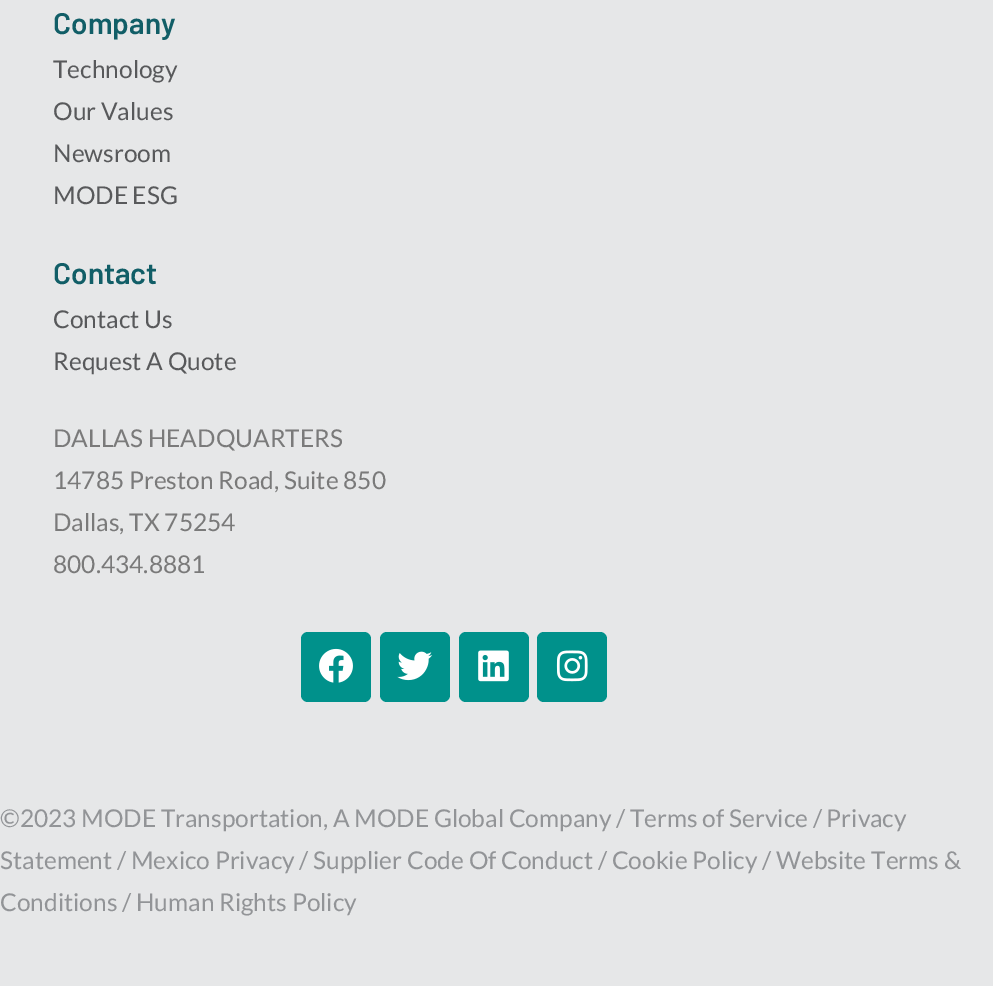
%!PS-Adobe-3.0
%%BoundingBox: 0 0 993 986
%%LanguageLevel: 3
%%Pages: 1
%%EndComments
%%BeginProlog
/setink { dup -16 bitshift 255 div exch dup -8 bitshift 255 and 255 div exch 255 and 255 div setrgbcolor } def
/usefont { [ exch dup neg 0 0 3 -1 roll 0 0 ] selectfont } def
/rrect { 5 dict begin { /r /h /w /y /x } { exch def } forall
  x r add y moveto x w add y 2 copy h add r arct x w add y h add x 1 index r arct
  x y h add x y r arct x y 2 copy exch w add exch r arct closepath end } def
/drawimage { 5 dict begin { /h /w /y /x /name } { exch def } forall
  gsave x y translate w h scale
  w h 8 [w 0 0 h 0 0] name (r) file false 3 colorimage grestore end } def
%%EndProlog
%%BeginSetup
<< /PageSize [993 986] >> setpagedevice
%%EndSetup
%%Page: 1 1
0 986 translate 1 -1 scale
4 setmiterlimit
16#E6E7E8 setink
0 0 993 986 rectfill
/Barlow-SemiBold 29.75 usefont
16#115E67 setink
53 34 moveto (Company) show
/Lato-Regular 24.5 usefont
16#58595B setink
[
    [(Technology) 53 78]
    [(Our Values) 53 120]
    [(Newsroom) 53 162]
    [(MODE ESG) 53 204]
] { aload pop moveto show } forall
/Barlow-SemiBold 29.75 usefont
16#115E67 setink
53 284 moveto (Contact) show
/Lato-Regular 24.5 usefont
16#58595B setink
53 328 moveto (Contact Us) show
53 370 moveto (Request A Quote) show
16#7A7A7A setink
[
    [(DALLAS HEADQUARTERS) 53 447]
    [(14785 Preston Road, Suite 850) 53 489]
    [(Dallas, TX 75254) 53 531]
    [(800.434.8881) 53 573]
] { aload pop moveto show } forall
16#00918B setink
301 632 70 70 7 rrect fill
(img1.raw) 319 648 34 35 drawimage
380 632 70 70 7 rrect fill
(img2.raw) 397 651 36 30 drawimage
459 632 70 70 7 rrect fill
(img3.raw) 478 650 31 32 drawimage
537 632 70 70 7 rrect fill
(img4.raw) 556 650 32 32 drawimage
16#929497 setink
[
    [(©2023 MODE Transportation, A MODE Global Company / Terms of Service / Privacy) 0 827]
    [(Statement / Mexico Privacy / Supplier Code Of Conduct / Cookie Policy / Website Terms &) 0 869]
    [(Conditions / Human Rights Policy) 0 911]
] { aload pop moveto show } forall
showpage
%%EOF
